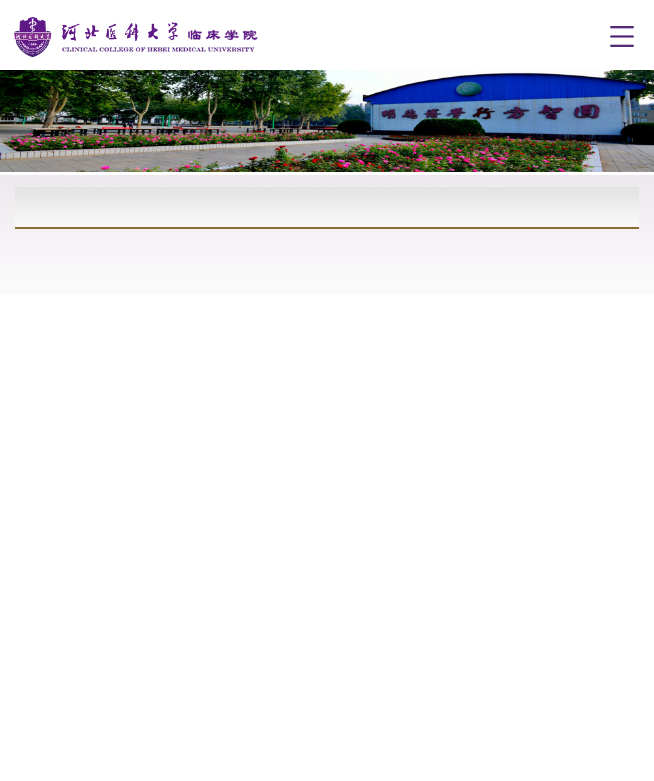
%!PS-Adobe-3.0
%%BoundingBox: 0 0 654 781
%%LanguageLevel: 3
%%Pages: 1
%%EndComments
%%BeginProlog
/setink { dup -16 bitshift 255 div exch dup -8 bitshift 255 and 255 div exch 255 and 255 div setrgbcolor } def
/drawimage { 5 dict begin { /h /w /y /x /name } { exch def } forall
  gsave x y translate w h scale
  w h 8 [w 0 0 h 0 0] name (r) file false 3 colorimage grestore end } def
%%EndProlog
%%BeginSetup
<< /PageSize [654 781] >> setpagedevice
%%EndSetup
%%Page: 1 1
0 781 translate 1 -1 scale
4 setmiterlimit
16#FFFFFF setink
0 0 654 781 rectfill
(img1.raw) 14 17 244 41 drawimage
(img2.raw) 610 26 24 21 drawimage
(img3.raw) 0 70 654 102 drawimage
(img4.raw) 0 175 654 120 drawimage
(img5.raw) 15 187 624 42 drawimage
showpage
%%EOF
